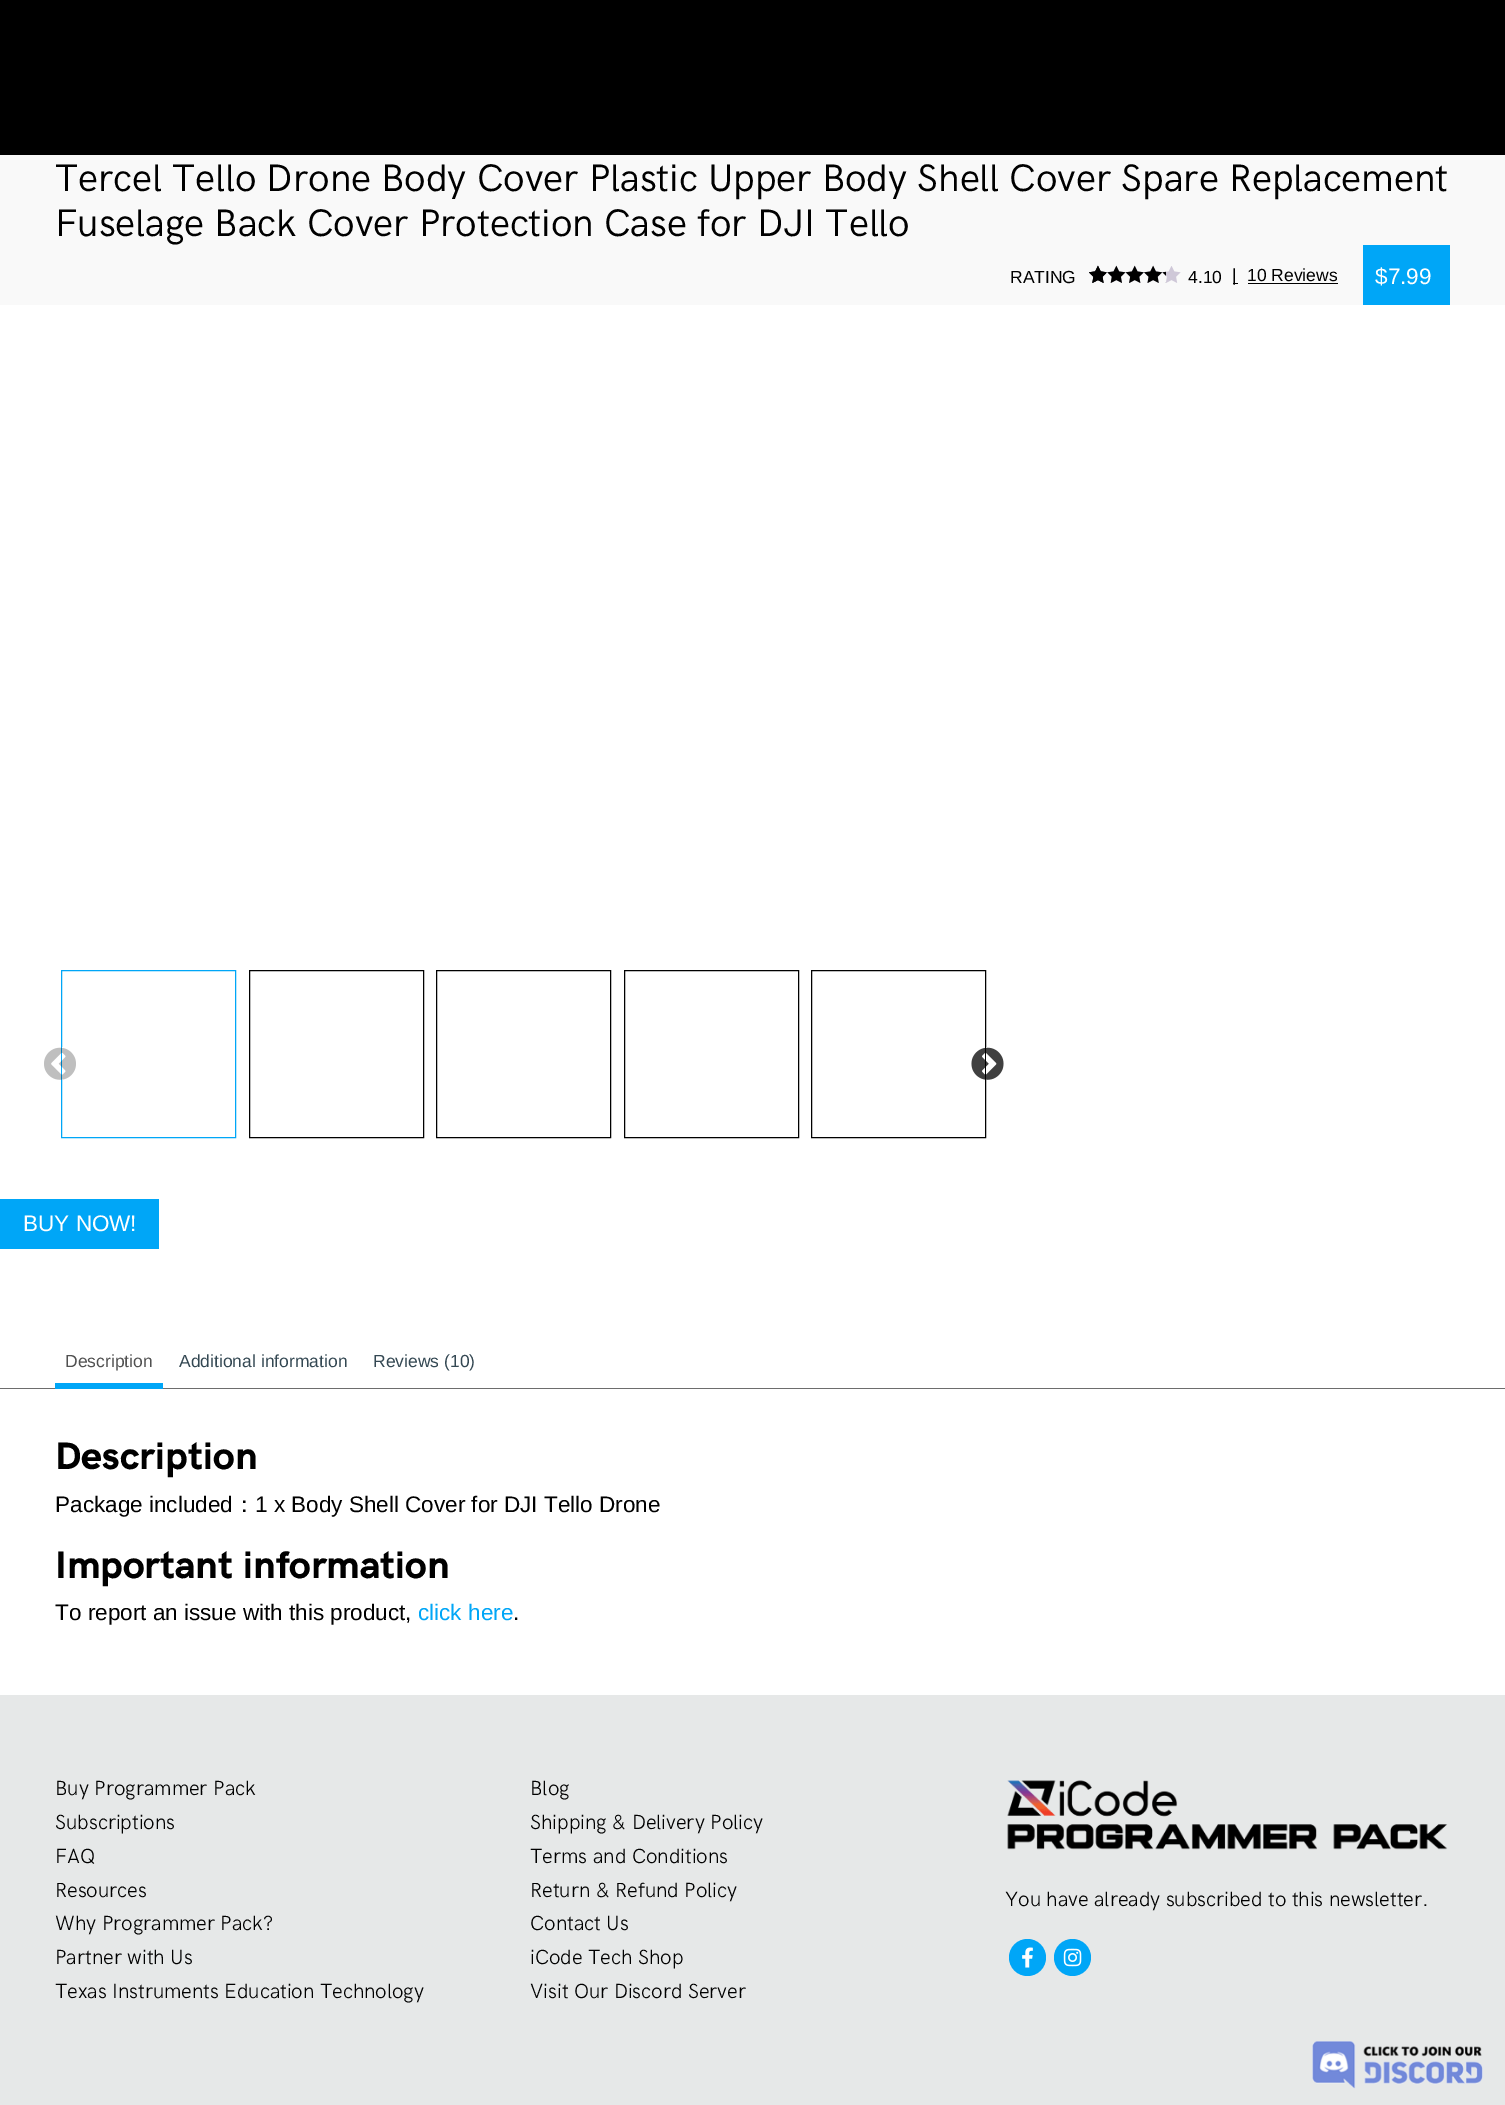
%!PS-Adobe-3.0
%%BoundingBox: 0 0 1505 2105
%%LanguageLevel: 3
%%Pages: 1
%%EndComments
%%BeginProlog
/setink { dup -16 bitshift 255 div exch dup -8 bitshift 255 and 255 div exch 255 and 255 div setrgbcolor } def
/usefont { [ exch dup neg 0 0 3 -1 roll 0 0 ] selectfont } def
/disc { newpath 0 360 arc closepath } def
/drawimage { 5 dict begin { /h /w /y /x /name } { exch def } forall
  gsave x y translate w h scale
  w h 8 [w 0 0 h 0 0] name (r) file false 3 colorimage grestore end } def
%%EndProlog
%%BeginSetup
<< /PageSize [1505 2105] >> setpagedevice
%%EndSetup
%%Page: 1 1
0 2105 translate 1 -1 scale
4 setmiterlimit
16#FFFFFF setink
0 0 1505 2105 rectfill
16#000000 setink
0 0 1505 155 rectfill
16#F9F9F9 setink
0 155 1505 150 rectfill
/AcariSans-Regular 37.5 usefont
16#000000 setink
55 191 moveto (Tercel Tello Drone Body Cover Plastic Upper Body Shell Cover Spare Replacement) show
55 236 moveto (Fuselage Back Cover Protection Case for DJI Tello) show
/LiberationSans-Regular 17.5 usefont
1010 283 moveto (RATING) show
(img3.raw) 1089 266 92 17 drawimage
(img1.raw) 1089 265 77 18 drawimage
(img2.raw) 1089 265 17 18 drawimage
1188 283 moveto (4.10) show
1233 283 5 1 rectfill
1232 281 moveto (|) show
1247 281 moveto (10 Reviews) show
1248 283 90 1 rectfill
16#00A6F7 setink
1363 245 87 60 rectfill
/LiberationSans-Regular 22.5 usefont
16#FFFFFF setink
1375 284 moveto ($7.99) show
16#00A6F7 setink
61.5 970.5 174 167 rectstroke
(img4.raw) 44 1047 32 33 drawimage
16#000000 setink
249.5 970.5 174 167 rectstroke
436.5 970.5 174 167 rectstroke
624.5 970.5 174 167 rectstroke
811.5 970.5 174 167 rectstroke
(img5.raw) 971 1047 33 33 drawimage
16#00A6F7 setink
0 1199 159 50 rectfill
16#FFFFFF setink
23 1231 moveto (BUY NOW!) show
16#6D6D6D setink
0 1388 1505 1 rectfill
16#FFFFFF setink
60 1339 moveto 158 1339 lineto 161 1339 163 1341 163 1344 curveto 163 1389 lineto 55 1389 lineto 55 1344 lineto 55 1341 57 1339 60 1339 curveto closepath fill
16#00A6F7 setink
55 1383 108 6 rectfill
/LiberationSans-Regular 17.5 usefont
16#515151 setink
65 1367 moveto (Description) show
16#344853 setink
179 1367 moveto (Additional information) show
373 1367 moveto (Reviews \(10\)) show
/AcariSans-ExtraBold 37.5 usefont
16#000000 setink
55 1469 moveto (Description) show
/LiberationSans-Regular 22.5 usefont
55 1512 moveto (Package included) show
/WenQuanYiZenHei-Medium 22.5 usefont
233 1512 moveto (：) show
/LiberationSans-Regular 22.5 usefont
255 1512 moveto (1 x Body Shell Cover for DJI Tello Drone) show
/AcariSans-ExtraBold 37.5 usefont
55 1578 moveto (Important information) show
/LiberationSans-Regular 22.5 usefont
55 1620 moveto (To report an issue with this product,) show
16#00A6F7 setink
418 1620 moveto (click here) show
16#000000 setink
513 1620 moveto (.) show
16#E6E8E8 setink
0 1695 1505 410 rectfill
/AcariSans-Light 20 usefont
16#000000 setink
[
    [(Buy Programmer Pack) 55 1795]
    [(Subscriptions) 55 1829]
    [(FAQ) 55 1863]
    [(Resources) 55 1897]
    [(Why Programmer Pack?) 55 1930]
    [(Partner with Us) 55 1964]
    [(Texas Instruments Education Technology) 55 1998]
    [(Blog) 530 1795]
    [(Shipping & Delivery Policy) 530 1829]
    [(Terms and Conditions) 530 1863]
    [(Return & Refund Policy) 530 1897]
    [(Contact Us) 530 1930]
    [(iCode Tech Shop) 530 1964]
    [(Visit Our Discord Server) 530 1998]
] { aload pop moveto show } forall
(img6.raw) 1007 1780 441 70 drawimage
1005 1906 moveto (You have already subscribed to this newsletter.) show
16#00A6F7 setink
1027.5 1957.5 18.5 disc fill
(img7.raw) 1022 1947 11 21 drawimage
1072.5 1957.5 18.5 disc fill
(img8.raw) 1063 1948 19 19 drawimage
(img9.raw) 1312 2041 171 48 drawimage
showpage
%%EOF
